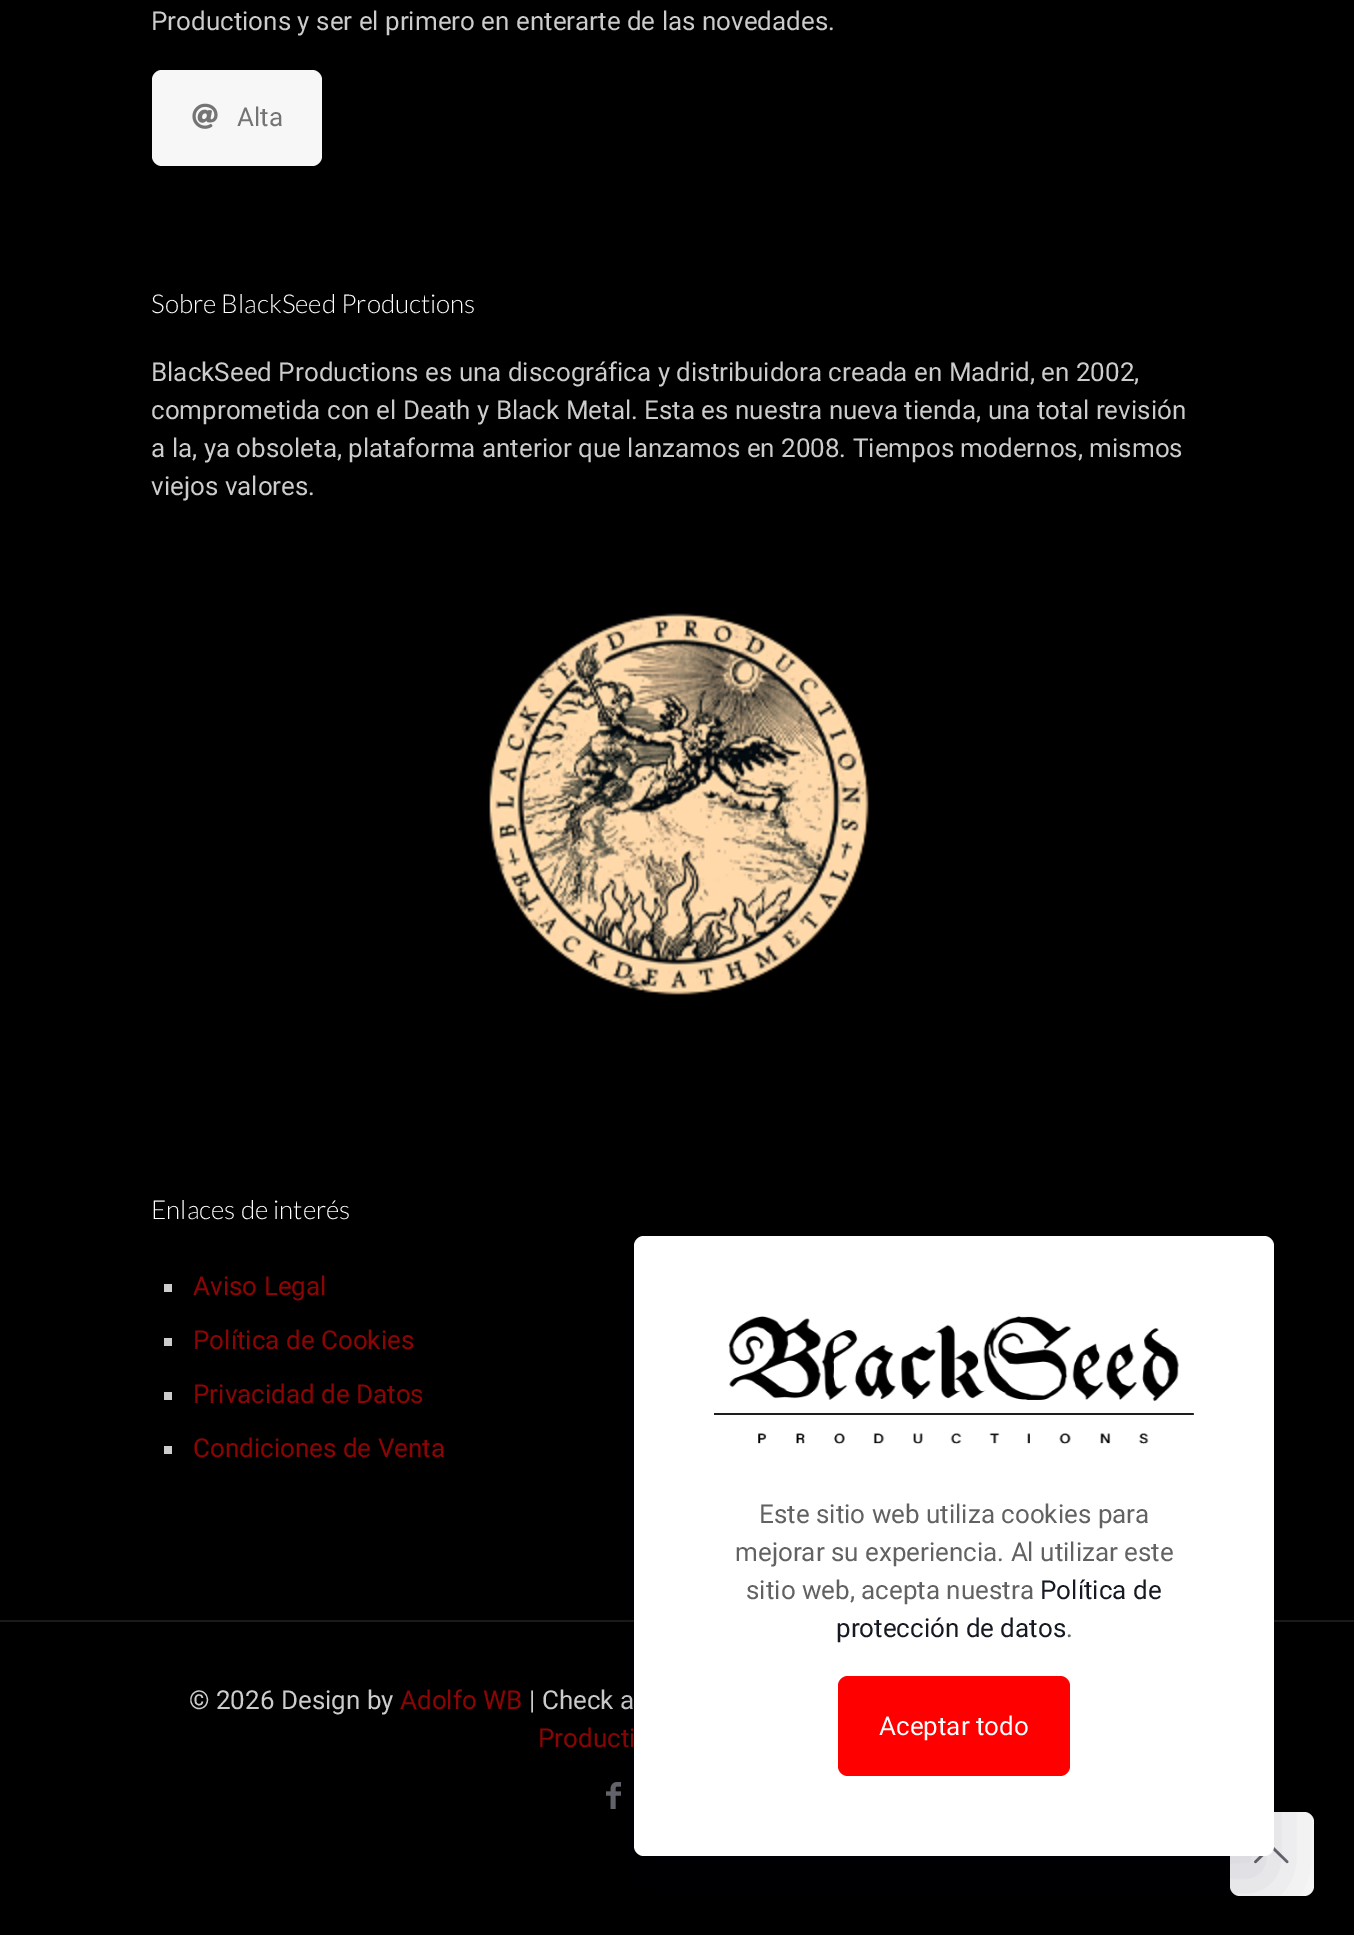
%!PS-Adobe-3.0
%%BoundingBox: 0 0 1354 1935
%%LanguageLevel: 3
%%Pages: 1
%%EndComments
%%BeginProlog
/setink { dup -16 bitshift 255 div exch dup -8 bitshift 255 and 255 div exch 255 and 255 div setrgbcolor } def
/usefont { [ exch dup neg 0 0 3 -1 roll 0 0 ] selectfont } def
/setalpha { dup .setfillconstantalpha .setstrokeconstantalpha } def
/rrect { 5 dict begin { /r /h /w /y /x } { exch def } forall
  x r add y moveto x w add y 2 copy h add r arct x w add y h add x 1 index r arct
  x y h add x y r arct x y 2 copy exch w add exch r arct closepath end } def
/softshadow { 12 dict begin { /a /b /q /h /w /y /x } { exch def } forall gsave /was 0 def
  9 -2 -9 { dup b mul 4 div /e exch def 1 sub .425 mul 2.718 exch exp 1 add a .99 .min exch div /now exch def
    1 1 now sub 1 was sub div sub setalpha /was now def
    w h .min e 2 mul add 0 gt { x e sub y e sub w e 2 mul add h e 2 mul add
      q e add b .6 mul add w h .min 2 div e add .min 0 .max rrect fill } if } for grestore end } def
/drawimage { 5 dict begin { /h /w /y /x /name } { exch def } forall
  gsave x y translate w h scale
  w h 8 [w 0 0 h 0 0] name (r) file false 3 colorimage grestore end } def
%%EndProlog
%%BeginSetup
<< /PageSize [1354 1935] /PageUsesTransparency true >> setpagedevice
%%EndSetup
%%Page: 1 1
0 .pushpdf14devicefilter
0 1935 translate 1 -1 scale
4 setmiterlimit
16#000000 setink
0 0 1354 1935 rectfill
/Roboto-Regular 26 usefont
16#CCCCCC setink
151 30 moveto (Productions y ser el primero en enterarte de las novedades.) show
16#F7F7F7 setink
152 70 170 96 10 rrect fill
(img1.raw) 192 103 26 26 drawimage
16#747474 setink
237 126 moveto (Alta) show
/Lato-Light 26 usefont
16#FFFFFF setink
151 313 moveto (Sobre BlackSeed Productions) show
/Roboto-Regular 26 usefont
16#CCCCCC setink
[
    [(BlackSeed Productions es una discográfica y distribuidora creada en Madrid, en 2002,) 151 381]
    [(comprometida con el Death y Black Metal. Esta es nuestra nueva tienda, una total revisión) 151 419]
    [(a la, ya obsoleta, plataforma anterior que lanzamos en 2008. Tiempos modernos, mismos) 151 457]
    [(viejos valores.) 151 495]
] { aload pop moveto show } forall
(img2.raw) 489 613 380 382 drawimage
/Lato-Light 26 usefont
16#FFFFFF setink
151 1219 moveto (Enlaces de interés) show
16#CCCCCC setink
164 1284 8 8 rectfill
/Roboto-Regular 26 usefont
16#8C0404 setink
193 1295 moveto (Aviso Legal) show
16#CCCCCC setink
164 1338 8 8 rectfill
16#8C0404 setink
193 1349 moveto (Política de Cookies) show
16#CCCCCC setink
164 1392 8 8 rectfill
16#8C0404 setink
193 1403 moveto (Privacidad de Datos) show
16#CCCCCC setink
164 1446 8 8 rectfill
16#8C0404 setink
193 1457 moveto (Condiciones de Venta) show
16#1A1A1A setink
0 1620 1354 2 rectfill
16#CCCCCC setink
189 1709 moveto (© 2026 Design by) show
16#8C0404 setink
400 1709 moveto (Adolfo WB) show
16#CCCCCC setink
529 1709 moveto (| Check a) show
16#8C0404 setink
538 1747 moveto (Producti) show
(img3.raw) 606 1782 15 27 drawimage
16#F7F7F7 setink
1230 1812 84 84 10 rrect fill
(img5.raw) 1254 1846 35 18 drawimage
16#010727 setink
634 1266 640 620 10 30 0.13 softshadow
16#FFFFFF setink
634 1236 640 620 10 rrect fill
(img4.raw) 714 1316 480 128 drawimage
16#626262 setink
[
    [(Este sitio web utiliza cookies para) 759 1523]
    [(mejorar su experiencia. Al utilizar este) 735 1561]
    [(sitio web, acepta nuestra) 746 1599]
] { aload pop moveto show } forall
16#161922 setink
1040 1599 moveto (Política de) show
836 1637 moveto (protección de datos) show
16#626262 setink
1066 1637 moveto (.) show
16#FF0000 setink
838 1676 232 100 10 rrect fill
16#FFFFFF setink
879 1735 moveto (Aceptar todo) show
.poppdf14devicefilter showpage
%%EOF
